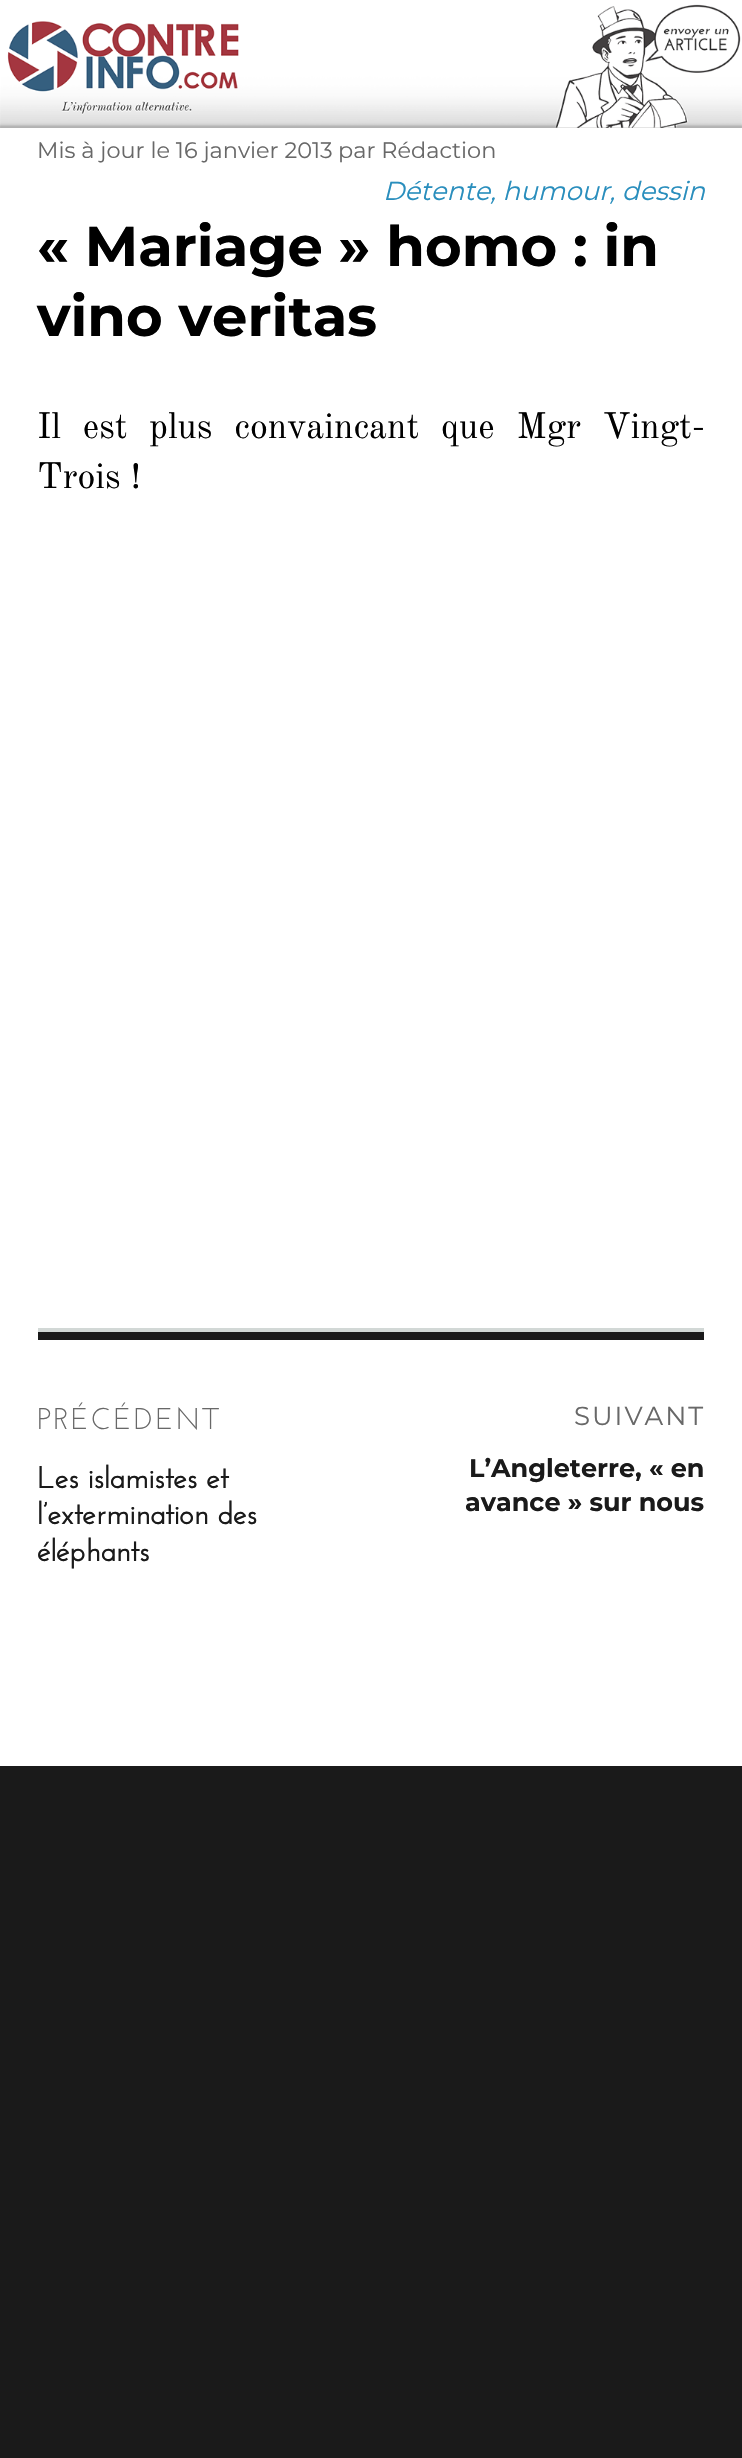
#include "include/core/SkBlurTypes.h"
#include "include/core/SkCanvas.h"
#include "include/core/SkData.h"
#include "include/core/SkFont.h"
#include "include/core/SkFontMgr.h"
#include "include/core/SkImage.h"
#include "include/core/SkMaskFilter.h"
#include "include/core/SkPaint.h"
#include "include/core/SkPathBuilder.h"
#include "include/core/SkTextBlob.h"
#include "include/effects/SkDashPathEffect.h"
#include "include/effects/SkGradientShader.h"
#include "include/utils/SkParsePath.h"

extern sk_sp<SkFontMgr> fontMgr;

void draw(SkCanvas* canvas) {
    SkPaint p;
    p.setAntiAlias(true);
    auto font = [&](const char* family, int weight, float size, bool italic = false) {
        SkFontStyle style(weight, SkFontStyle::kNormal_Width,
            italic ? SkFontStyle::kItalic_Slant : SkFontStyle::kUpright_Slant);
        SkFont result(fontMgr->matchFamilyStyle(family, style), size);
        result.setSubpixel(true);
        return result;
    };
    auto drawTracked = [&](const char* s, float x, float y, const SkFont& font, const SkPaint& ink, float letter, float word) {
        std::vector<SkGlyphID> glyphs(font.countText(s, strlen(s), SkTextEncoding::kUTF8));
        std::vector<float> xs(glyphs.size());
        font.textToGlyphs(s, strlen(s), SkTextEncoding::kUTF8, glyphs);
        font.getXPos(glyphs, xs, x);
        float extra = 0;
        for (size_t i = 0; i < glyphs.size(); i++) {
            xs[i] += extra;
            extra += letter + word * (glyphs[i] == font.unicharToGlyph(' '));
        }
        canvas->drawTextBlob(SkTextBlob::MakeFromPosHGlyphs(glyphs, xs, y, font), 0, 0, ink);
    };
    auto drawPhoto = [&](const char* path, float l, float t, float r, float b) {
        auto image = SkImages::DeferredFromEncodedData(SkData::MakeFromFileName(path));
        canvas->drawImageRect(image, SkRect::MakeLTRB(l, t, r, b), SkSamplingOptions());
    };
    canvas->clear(0xFF1A1A1A);
    p.setColor(0xFFFFFFFF);
    canvas->drawRect(SkRect::MakeLTRB(0, 0, 742, 1766), p);
    drawPhoto("media/1.png", 0, 4, 742, 128);
    p.setColor(0xFFD2D8D6);
    canvas->drawRect(SkRect::MakeLTRB(38, 1328, 704, 1332), p);
    auto font1 = font("Montserrat", 400, 22.4f);
    p.setColor(0xFF686868);
    canvas->drawString("Mis à jour le 16 janvier 2013", 37, 158, font1, p);
    canvas->drawString("par Rédaction", 338, 158, font1, p);
    auto font2 = font("Montserrat", 400, 26, true);
    p.setColor(0xFF298EBD);
    canvas->drawString("Détente, humour, dessin", 383, 200, font2, p);
    auto font3 = font("Montserrat", 700, 56);
    p.setColor(0xFF000000);
    canvas->drawString("« Mariage » homo : in", 37, 266, font3, p);
    canvas->drawString("vino veritas", 37, 336, font3, p);
    auto font4 = font("Old Standard TT", 400, 36);
    drawTracked("Il est plus convaincant que Mgr Vingt-", 37, 438, font4, p, 0, 11.75f);
    canvas->drawString("Trois !", 37, 488, font4, p);
    p.setColor(0xFF1A1A1A);
    canvas->drawRect(SkRect::MakeLTRB(38, 1332, 704, 1340), p);
    auto font5 = font("Josefin Sans", 400, 30);
    p.setColor(0xFF686868);
    drawTracked("PRÉCÉDENT", 37, 1429, font5, p, 2.25f, 0);
    auto font6 = font("Josefin Sans", 700, 30);
    p.setColor(0xFF1A1A1A);
    {
        const struct { const char* s; float x, y; } items[] = {
            {"Les islamistes et", 37, 1488},
            {"l’extermination des", 37, 1524},
            {"éléphants", 37, 1561},
        };
        for (auto [s, x, y] : items) {
            canvas->drawString(s, x, y, font6, p);
        }
    }
    auto font7 = font("Montserrat", 400, 26);
    p.setColor(0xFF686868);
    drawTracked("SUIVANT", 574, 1425, font7, p, 2, 0);
    auto font8 = font("Montserrat", 700, 25.5f);
    p.setColor(0xFF1A1A1A);
    canvas->drawString("L’Angleterre, « en", 469, 1477, font8, p);
    canvas->drawString("avance » sur nous", 465, 1511, font8, p);
}
